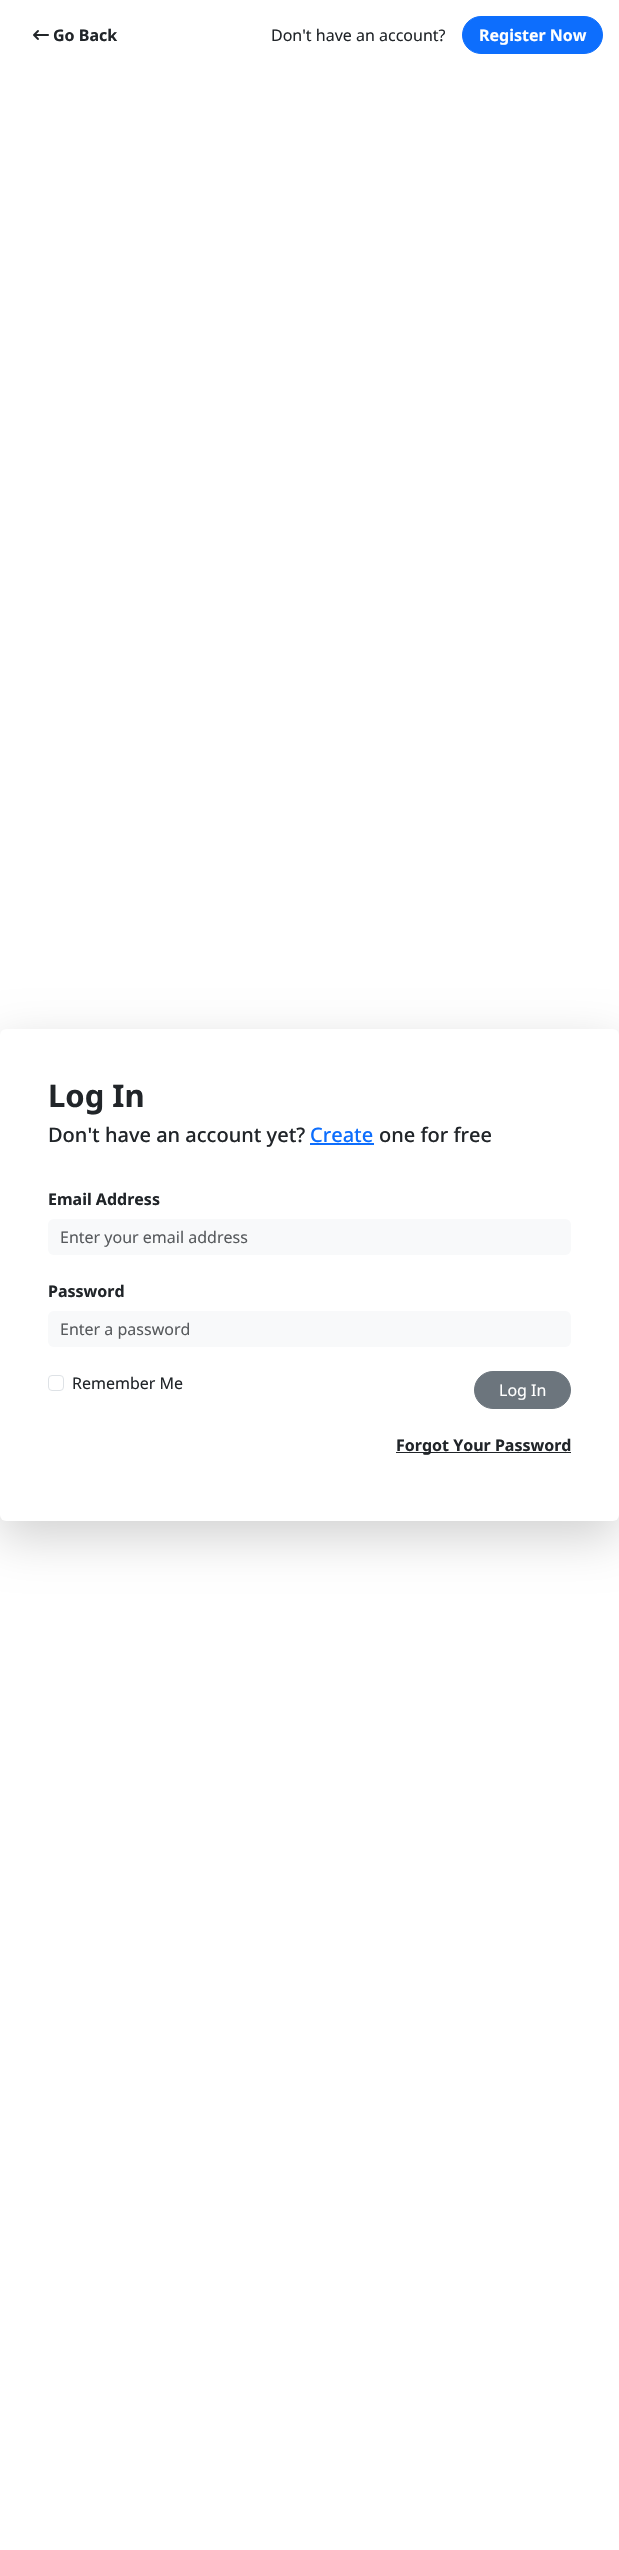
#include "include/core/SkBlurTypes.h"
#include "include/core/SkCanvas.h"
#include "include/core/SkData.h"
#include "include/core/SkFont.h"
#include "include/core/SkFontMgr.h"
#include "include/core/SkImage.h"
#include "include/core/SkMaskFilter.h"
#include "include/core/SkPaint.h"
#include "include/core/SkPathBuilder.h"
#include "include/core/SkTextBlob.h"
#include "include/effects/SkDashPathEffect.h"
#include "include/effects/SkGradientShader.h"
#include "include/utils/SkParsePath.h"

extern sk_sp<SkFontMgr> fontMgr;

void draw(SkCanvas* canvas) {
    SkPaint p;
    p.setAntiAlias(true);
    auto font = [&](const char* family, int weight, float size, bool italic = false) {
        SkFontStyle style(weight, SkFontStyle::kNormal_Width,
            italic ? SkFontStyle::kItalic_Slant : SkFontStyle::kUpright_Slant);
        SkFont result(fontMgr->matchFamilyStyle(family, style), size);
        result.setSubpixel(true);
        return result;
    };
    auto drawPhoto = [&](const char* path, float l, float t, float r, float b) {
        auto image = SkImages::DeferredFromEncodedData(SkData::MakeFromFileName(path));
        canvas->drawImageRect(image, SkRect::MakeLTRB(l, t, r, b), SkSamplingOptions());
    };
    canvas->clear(0xFFFFFFFF);
    drawPhoto("media/1.png", 33, 30, 49, 40);
    auto font1 = font("Noto Sans", 700, 16);
    p.setColor(0xFF212529);
    canvas->drawString("Go Back", 53, 41, font1, p);
    auto font2 = font("Noto Sans", 400, 16);
    canvas->drawString("Don't have an account?", 271, 41, font2, p);
    p.setColor(0xFF0D6EFD);
    canvas->drawRoundRect(SkRect::MakeLTRB(462.5f, 16.5f, 602.5f, 53.5f), 18.5f, 18.5f, p);
    p.setStyle(SkPaint::kStroke_Style);
    p.setStrokeWidth(1);
    canvas->drawRoundRect(SkRect::MakeLTRB(462.5f, 16.5f, 602.5f, 53.5f), 18.5f, 18.5f, p);
    p.setStyle(SkPaint::kFill_Style);
    p.setColor(0xFFFFFFFF);
    canvas->drawString("Register Now", 479, 41, font1, p);
    p.setColor(0x2E000000);
    p.setMaskFilter(SkMaskFilter::MakeBlur(kNormal_SkBlurStyle, 24));
    canvas->drawRoundRect(SkRect::MakeLTRB(0, 1045, 619, 1537), 6, 6, p);
    p.setMaskFilter(nullptr);
    p.setColor(0xFFFFFFFF);
    canvas->drawRoundRect(SkRect::MakeLTRB(0, 1029, 619, 1521), 6, 6, p);
    auto font3 = font("Noto Sans", 700, 31);
    p.setColor(0xFF212529);
    canvas->drawString("Log In", 48, 1107, font3, p);
    auto font4 = font("Noto Sans", 500, 20);
    canvas->drawString("Don't have an account yet?", 48, 1142, font4, p);
    p.setColor(0xFF0D6EFD);
    canvas->drawString("Create", 310, 1142, font4, p);
    canvas->drawRect(SkRect::MakeLTRB(310, 1143, 374, 1145), p);
    p.setColor(0xFF212529);
    canvas->drawString("one for free", 379, 1142, font4, p);
    canvas->drawString("Email Address", 48, 1205, font1, p);
    p.setColor(0xFFF8F9FA);
    canvas->drawRoundRect(SkRect::MakeLTRB(48, 1219, 571, 1255), 6, 6, p);
    p.setColor(0xFF575A5D);
    canvas->drawString("Enter your email address", 60, 1243, font2, p);
    p.setColor(0xFF212529);
    canvas->drawString("Password", 48, 1297, font1, p);
    p.setColor(0xFFF8F9FA);
    canvas->drawRoundRect(SkRect::MakeLTRB(48, 1311, 571, 1347), 6, 6, p);
    p.setColor(0xFF575A5D);
    canvas->drawString("Enter a password", 60, 1335, font2, p);
    p.setStyle(SkPaint::kStroke_Style);
    p.setColor(0xFFDEE2E6);
    canvas->drawRoundRect(SkRect::MakeLTRB(48.5f, 1375.5f, 63.5f, 1390.5f), 3.5f, 3.5f, p);
    p.setStyle(SkPaint::kFill_Style);
    p.setColor(0xFF212529);
    canvas->drawString("Remember Me", 72, 1389, font2, p);
    p.setColor(0xFF6C757D);
    canvas->drawRoundRect(SkRect::MakeLTRB(474.5f, 1371.5f, 570.5f, 1408.5f), 18.5f, 18.5f, p);
    p.setStyle(SkPaint::kStroke_Style);
    canvas->drawRoundRect(SkRect::MakeLTRB(474.5f, 1371.5f, 570.5f, 1408.5f), 18.5f, 18.5f, p);
    p.setStyle(SkPaint::kFill_Style);
    p.setColor(0xFFFFFFFF);
    canvas->drawString("Log In", 499, 1396, font2, p);
    p.setColor(0xFF212529);
    canvas->drawRect(SkRect::MakeLTRB(396, 1452, 571, 1453), p);
    canvas->drawString("Forgot Your Password", 396, 1451, font1, p);
}
